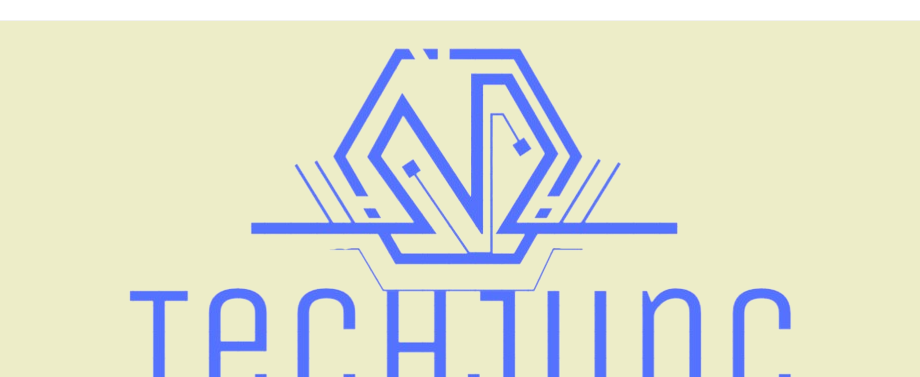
#include "include/core/SkBlurTypes.h"
#include "include/core/SkCanvas.h"
#include "include/core/SkData.h"
#include "include/core/SkFont.h"
#include "include/core/SkFontMgr.h"
#include "include/core/SkImage.h"
#include "include/core/SkMaskFilter.h"
#include "include/core/SkPaint.h"
#include "include/core/SkPathBuilder.h"
#include "include/core/SkTextBlob.h"
#include "include/effects/SkDashPathEffect.h"
#include "include/effects/SkGradientShader.h"
#include "include/utils/SkParsePath.h"

extern sk_sp<SkFontMgr> fontMgr;

void draw(SkCanvas* canvas) {
    SkPaint p;
    p.setAntiAlias(true);
    auto drawPhoto = [&](const char* path, float l, float t, float r, float b) {
        auto image = SkImages::DeferredFromEncodedData(SkData::MakeFromFileName(path));
        canvas->drawImageRect(image, SkRect::MakeLTRB(l, t, r, b), SkSamplingOptions());
    };
    canvas->clear(0xFFEDEDC8);
    p.setColor(0xFFFFFFFF);
    canvas->drawRect(SkRect::MakeLTRB(0, 0, 920, 20), p);
    p.setColor(0xFFF1F1F1);
    canvas->drawRect(SkRect::MakeLTRB(0, 20, 920, 21), p);
    drawPhoto("media/1.png", 129, 47, 792, 377);
}
